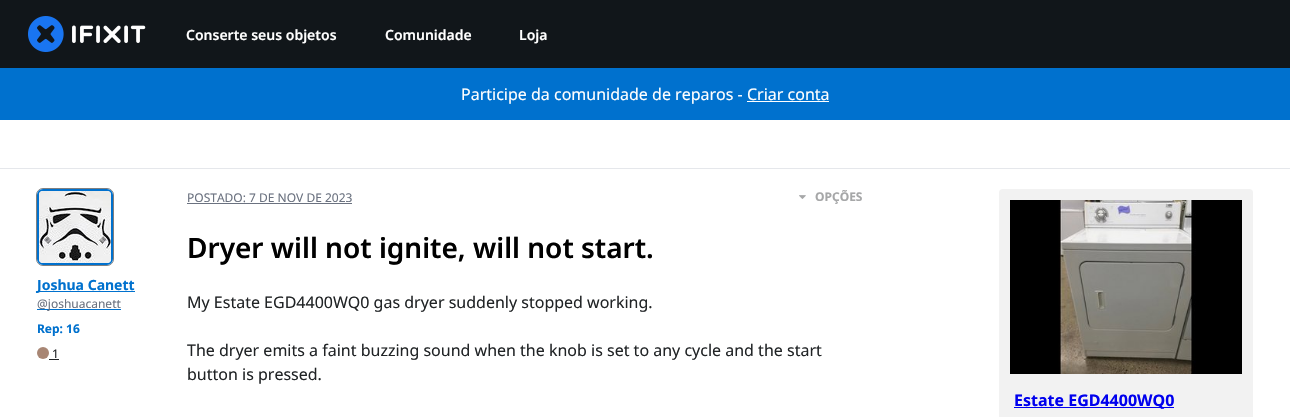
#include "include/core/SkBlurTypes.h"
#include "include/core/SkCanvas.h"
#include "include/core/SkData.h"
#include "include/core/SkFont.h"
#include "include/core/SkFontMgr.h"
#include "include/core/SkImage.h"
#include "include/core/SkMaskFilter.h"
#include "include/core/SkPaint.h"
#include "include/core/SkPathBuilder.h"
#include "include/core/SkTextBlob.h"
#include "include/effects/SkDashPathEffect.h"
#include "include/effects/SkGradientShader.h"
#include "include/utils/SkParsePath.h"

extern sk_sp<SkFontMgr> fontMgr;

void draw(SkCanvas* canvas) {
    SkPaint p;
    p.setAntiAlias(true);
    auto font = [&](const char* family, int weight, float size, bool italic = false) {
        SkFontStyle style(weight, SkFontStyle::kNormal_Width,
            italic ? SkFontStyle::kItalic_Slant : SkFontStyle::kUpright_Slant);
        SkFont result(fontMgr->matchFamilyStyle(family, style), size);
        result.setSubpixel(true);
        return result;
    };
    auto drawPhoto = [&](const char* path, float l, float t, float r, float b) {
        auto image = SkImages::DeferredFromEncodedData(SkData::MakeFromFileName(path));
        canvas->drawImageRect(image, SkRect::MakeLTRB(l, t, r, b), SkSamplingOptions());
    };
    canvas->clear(0xFFFFFFFF);
    p.setColor(0xFF11161A);
    canvas->drawRect(SkRect::MakeLTRB(0, 0, 1290, 68), p);
    drawPhoto("media/1.png", 28, 16, 146, 52);
    auto font1 = font("Noto Sans", 600, 14);
    p.setColor(0xFFFFFFFF);
    {
        const struct { const char* s; float x, y; } items[] = {
            {"Conserte seus objetos", 186, 40},
            {"Comunidade", 385, 40},
            {"Loja", 519, 40},
        };
        for (auto [s, x, y] : items) {
            canvas->drawString(s, x, y, font1, p);
        }
    }
    p.setColor(0xFF0071CE);
    canvas->drawRect(SkRect::MakeLTRB(0, 68, 1290, 120), p);
    auto font2 = font("Noto Sans", 400, 16);
    p.setColor(0xFFFFFFFF);
    canvas->drawString("Participe da comunidade de reparos - Criar conta", 461, 100, font2, p);
    canvas->drawRect(SkRect::MakeLTRB(747, 101, 829, 102), p);
    p.setColor(0xFFE5E7EB);
    canvas->drawRect(SkRect::MakeLTRB(0, 168, 1290, 169), p);
    p.setStyle(SkPaint::kStroke_Style);
    p.setStrokeWidth(1);
    p.setColor(0xFF808080);
    canvas->drawRoundRect(SkRect::MakeLTRB(36.5f, 188.5f, 113.5f, 265.5f), 6.5f, 6.5f, p);
    p.setStrokeWidth(2);
    p.setColor(0xFF0071CE);
    canvas->drawRoundRect(SkRect::MakeLTRB(38, 190, 112, 264), 5, 5, p);
    drawPhoto("media/2.png", 39, 191, 111, 263);
    p.setStyle(SkPaint::kFill_Style);
    canvas->drawRect(SkRect::MakeLTRB(37, 291, 135, 292), p);
    auto font3 = font("Noto Sans", 700, 14);
    canvas->drawString("Joshua Canett", 37, 290, font3, p);
    canvas->drawRect(SkRect::MakeLTRB(37, 309, 121, 310), p);
    auto font4 = font("Noto Sans", 400, 12);
    p.setColor(0xFF6B7280);
    canvas->drawString("@joshuacanett", 37, 308, font4, p);
    auto font5 = font("Noto Sans", 700, 12);
    p.setColor(0xFF0071CE);
    canvas->drawString("Rep: 16", 37, 333, font5, p);
    p.setColor(0xFFA88674);
    canvas->drawCircle(43, 353, 6, p);
    p.setColor(0xFF212426);
    canvas->drawString("1", 52, 358, font4, p);
    canvas->drawRect(SkRect::MakeLTRB(49, 359, 59, 360), p);
    p.setColor(0xFF6B7280);
    canvas->drawString("POSTADO: 7 DE NOV DE 2023", 187, 202, font4, p);
    canvas->drawRect(SkRect::MakeLTRB(187, 203, 352, 204), p);
    drawPhoto("media/3.png", 799, 195, 806, 199);
    p.setColor(0xFFA6A7A8);
    canvas->drawString("OPÇÕES", 815, 201, font5, p);
    auto font6 = font("Noto Sans", 600, 28);
    p.setColor(0xFF000000);
    canvas->drawString("Dryer will not ignite, will not start.", 187, 258, font6, p);
    p.setColor(0xFF212426);
    {
        const struct { const char* s; float x, y; } items[] = {
            {"My Estate EGD4400WQ0 gas dryer suddenly stopped working.", 187, 308},
            {"The dryer emits a faint buzzing sound when the knob is set to any cycle and the start", 187, 356},
            {"button is pressed.", 187, 380},
        };
        for (auto [s, x, y] : items) {
            canvas->drawString(s, x, y, font2, p);
        }
    }
    p.setColor(0xFFF2F2F2);
    canvas->drawRoundRect(SkRect::MakeLTRB(999, 189, 1253, 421), 4, 4, p);
    drawPhoto("media/4.png", 1010, 200, 1242, 374);
    p.setColor(0xFF0000EE);
    canvas->drawRect(SkRect::MakeLTRB(1014, 407, 1174, 408), p);
    auto font7 = font("Noto Sans", 700, 16);
    canvas->drawString("Estate EGD4400WQ0", 1014, 406, font7, p);
}
